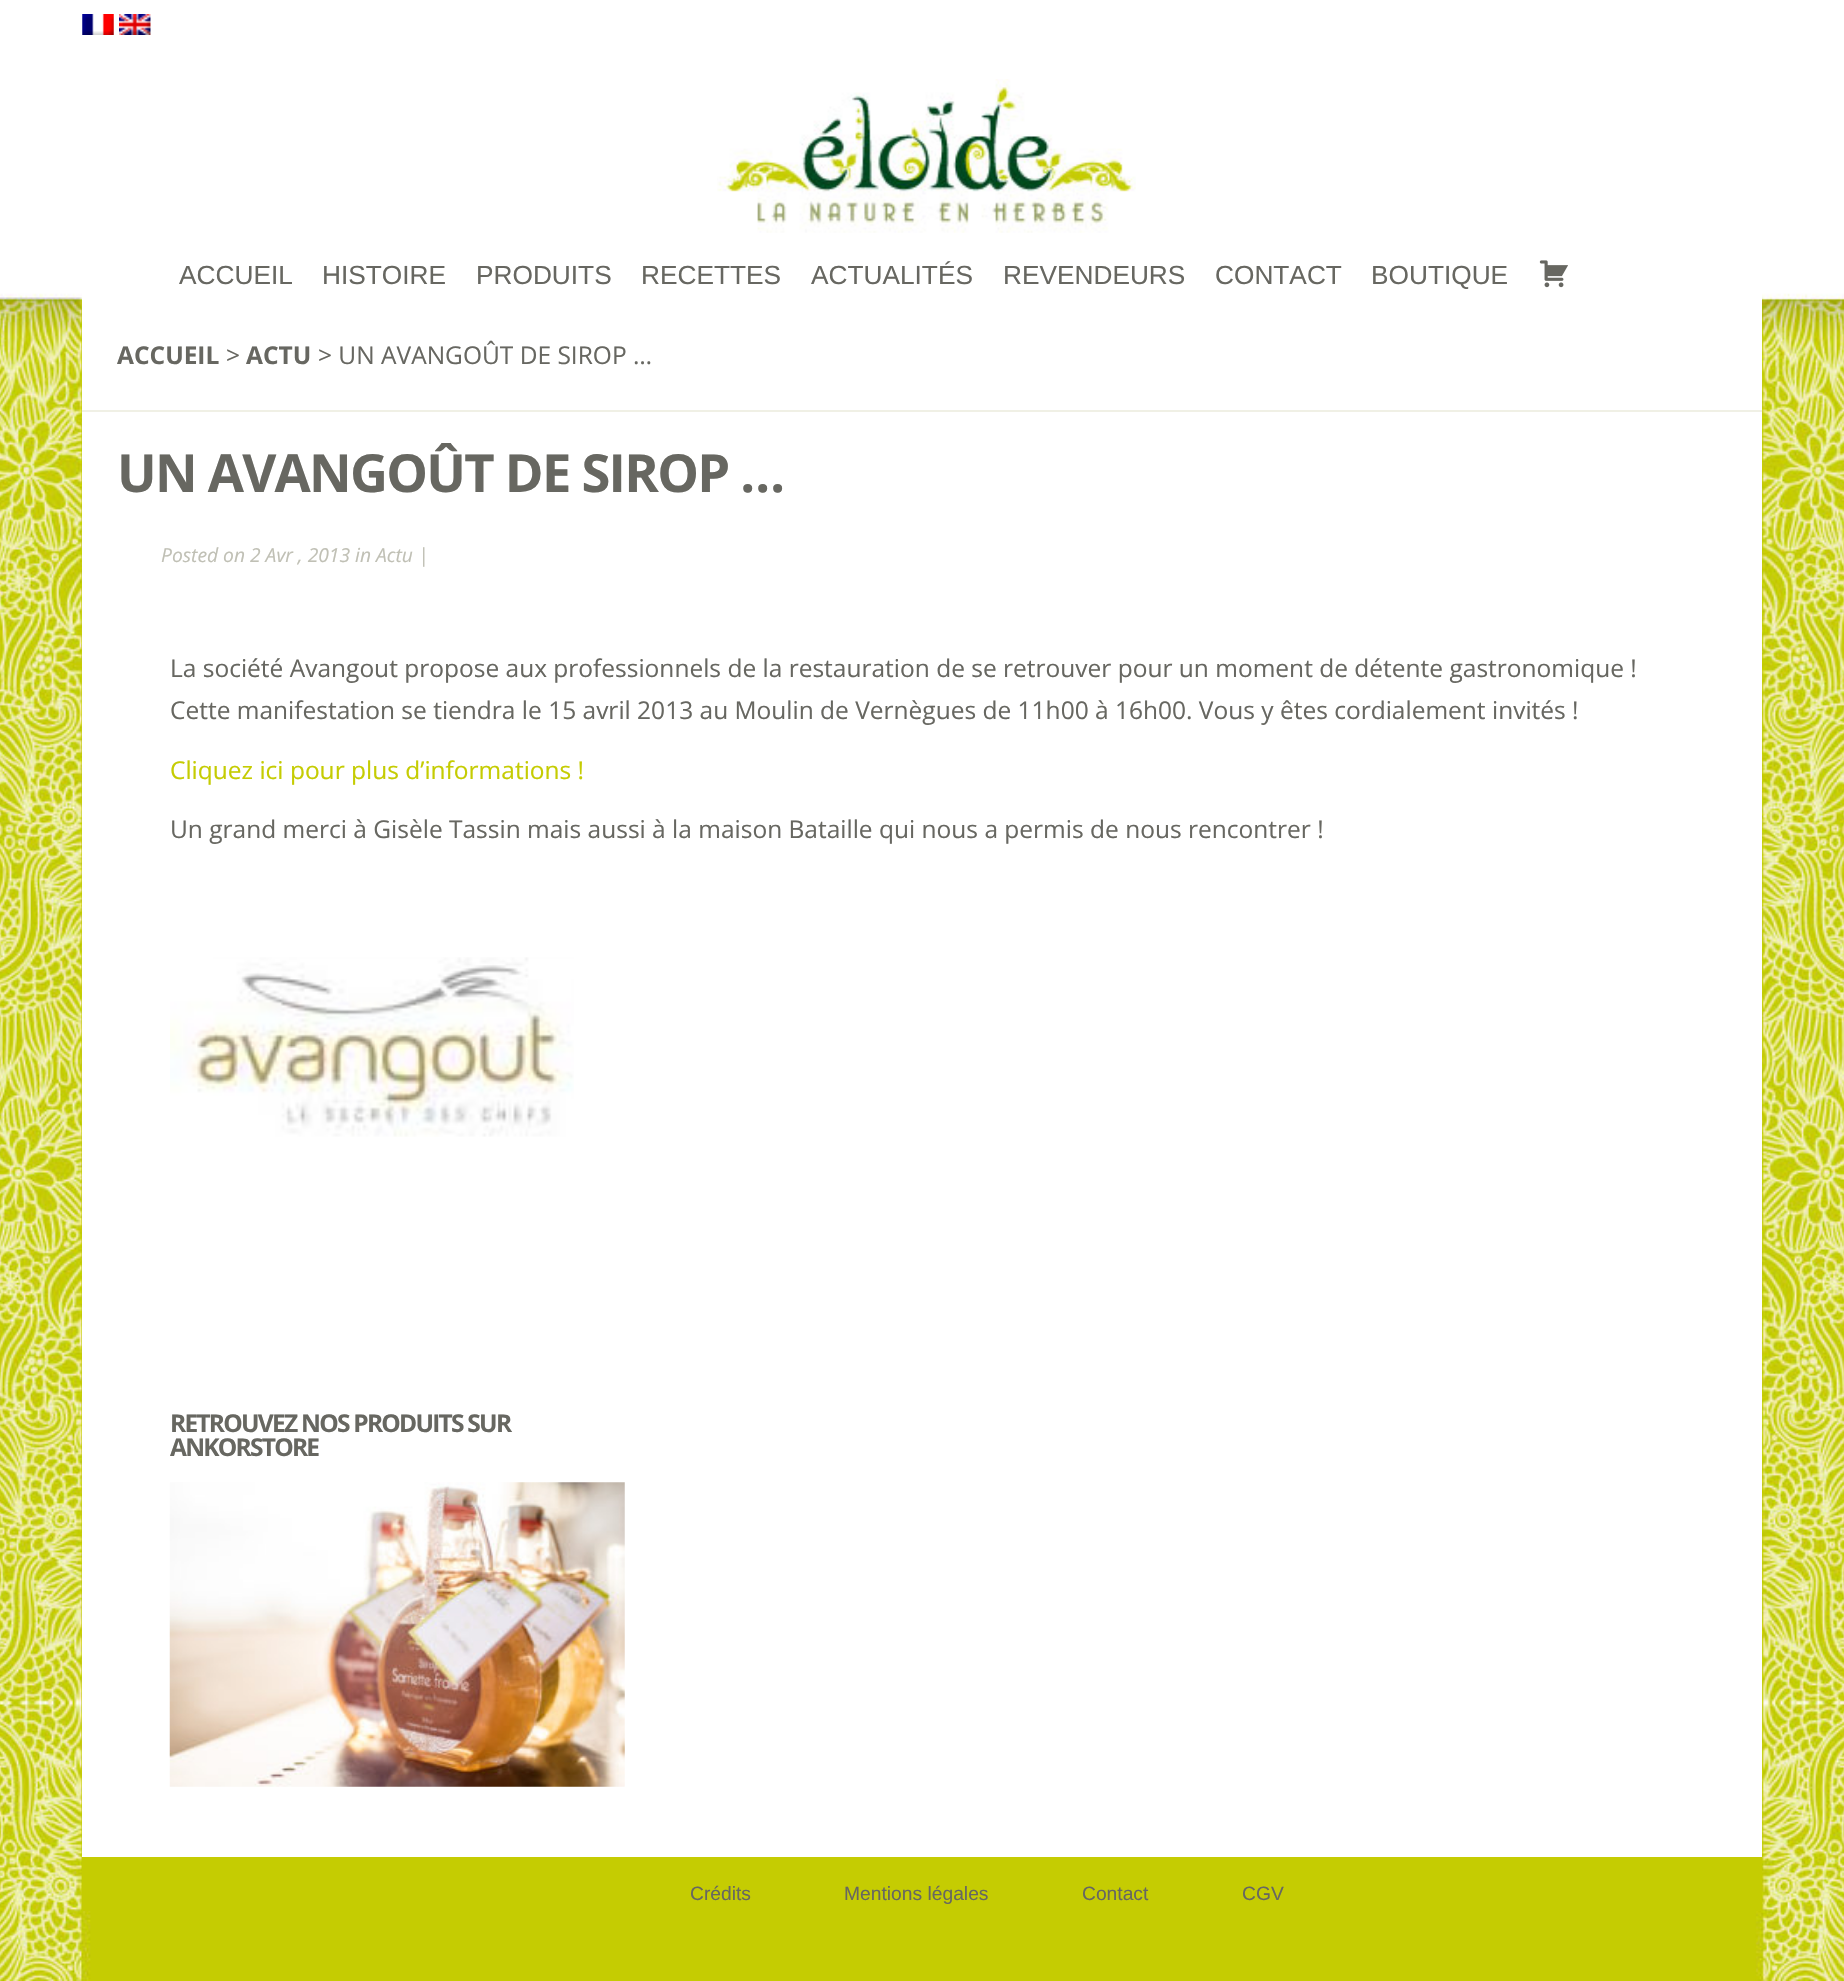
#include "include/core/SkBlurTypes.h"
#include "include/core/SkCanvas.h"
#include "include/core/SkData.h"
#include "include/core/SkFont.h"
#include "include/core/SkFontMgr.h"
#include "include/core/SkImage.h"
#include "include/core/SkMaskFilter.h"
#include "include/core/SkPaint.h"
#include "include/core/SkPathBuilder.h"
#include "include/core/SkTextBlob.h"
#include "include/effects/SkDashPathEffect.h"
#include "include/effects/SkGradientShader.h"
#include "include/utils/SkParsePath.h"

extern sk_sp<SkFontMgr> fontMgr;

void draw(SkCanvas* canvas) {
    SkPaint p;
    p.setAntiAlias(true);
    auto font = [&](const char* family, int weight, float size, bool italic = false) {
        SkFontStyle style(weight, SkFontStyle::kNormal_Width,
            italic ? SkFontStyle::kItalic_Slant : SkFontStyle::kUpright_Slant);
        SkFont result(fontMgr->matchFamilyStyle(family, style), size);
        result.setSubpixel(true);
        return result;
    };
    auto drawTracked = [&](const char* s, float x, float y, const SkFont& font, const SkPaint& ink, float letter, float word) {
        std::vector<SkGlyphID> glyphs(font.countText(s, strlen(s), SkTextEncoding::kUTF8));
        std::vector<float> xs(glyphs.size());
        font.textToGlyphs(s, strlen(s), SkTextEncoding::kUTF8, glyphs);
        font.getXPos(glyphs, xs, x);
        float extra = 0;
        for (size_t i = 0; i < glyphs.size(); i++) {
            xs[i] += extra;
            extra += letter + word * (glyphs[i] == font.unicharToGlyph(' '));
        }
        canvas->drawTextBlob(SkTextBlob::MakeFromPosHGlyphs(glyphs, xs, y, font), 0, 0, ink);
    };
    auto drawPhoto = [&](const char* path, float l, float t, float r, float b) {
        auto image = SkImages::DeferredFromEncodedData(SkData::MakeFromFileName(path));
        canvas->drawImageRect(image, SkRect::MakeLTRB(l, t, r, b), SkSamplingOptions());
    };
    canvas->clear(0xFFFFFFFF);
    drawPhoto("media/1.png", 0, 293, 1844, 1981);
    p.setColor(0xFFFFFFFF);
    canvas->drawRect(SkRect::MakeLTRB(82, 293, 1762, 1857), p);
    drawPhoto("media/2.png", 82, 14, 114, 35);
    drawPhoto("media/3.png", 119, 14, 151, 35);
    drawPhoto("media/4.png", 717, 79, 1136, 233);
    auto font1 = font("Liberation Sans", 400, 26.25f);
    p.setColor(0xFF676761);
    {
        const struct { const char* s; float x, y; } items[] = {
            {"ACCUEIL", 179, 284},
            {"HISTOIRE", 322, 284},
            {"PRODUITS", 476, 284},
            {"RECETTES", 641, 284},
            {"ACTUALITÉS", 811, 284},
            {"REVENDEURS", 1003, 284},
            {"CONTACT", 1215, 284},
            {"BOUTIQUE", 1371, 284},
        };
        for (auto [s, x, y] : items) {
            canvas->drawString(s, x, y, font1, p);
        }
    }
    drawPhoto("media/5.png", 1539, 260, 1568, 288);
    p.setColor(0xFFF0F0E5);
    canvas->drawRect(SkRect::MakeLTRB(82, 410, 1762, 412), p);
    auto font2 = font("Open Sans", 700, 24.5f);
    p.setColor(0xFF676761);
    canvas->drawString("ACCUEIL", 117, 364, font2, p);
    auto font3 = font("Open Sans", 400, 24.5f);
    canvas->drawString(">", 226, 364, font3, p);
    canvas->drawString("ACTU", 246, 364, font2, p);
    canvas->drawString("> UN AVANGOÛT DE SIROP …", 318, 364, font3, p);
    auto font4 = font("Open Sans", 700, 52.5f);
    drawTracked("UN AVANGOÛT DE SIROP …", 117, 492, font4, p, -1.75f, 0);
    auto font5 = font("Open Sans", 400, 19.25f, true);
    p.setColor(0xFFC0C0B5);
    canvas->drawString("Posted on 2 Avr , 2013 in Actu |", 161, 562, font5, p);
    p.setColor(0xFF676761);
    canvas->drawString("La société Avangout propose aux professionnels de la restauration de se retrouver pour un moment de détente gastronomique !", 170, 677, font3, p);
    canvas->drawString("Cette manifestation se tiendra le 15 avril 2013 au Moulin de Vernègues de 11h00 à 16h00. Vous y êtes cordialement invités !", 170, 719, font3, p);
    p.setColor(0xFFC5CC02);
    canvas->drawString("Cliquez ici pour plus d’informations !", 170, 779, font3, p);
    p.setColor(0xFF676761);
    canvas->drawString("Un grand merci à Gisèle Tassin mais aussi à la maison Bataille qui nous a permis de nous rencontrer !", 170, 838, font3, p);
    drawPhoto("media/6.png", 170, 957, 574, 1137);
    drawTracked("RETROUVEZ NOS PRODUITS SUR", 170, 1432, font2, p, -1.75f, 0);
    drawTracked("ANKORSTORE", 170, 1456, font2, p, -1.75f, 0);
    drawPhoto("media/7.png", 169, 1482, 625, 1787);
    p.setColor(0xFFC5CC02);
    canvas->drawRect(SkRect::MakeLTRB(82, 1857, 1762, 1911), p);
    auto font6 = font("Liberation Sans", 400, 19.25f);
    p.setColor(0xFF676761);
    {
        const struct { const char* s; float x, y; } items[] = {
            {"Crédits", 690, 1900},
            {"Mentions légales", 844, 1900},
            {"Contact", 1082, 1900},
            {"CGV", 1242, 1900},
        };
        for (auto [s, x, y] : items) {
            canvas->drawString(s, x, y, font6, p);
        }
    }
}
